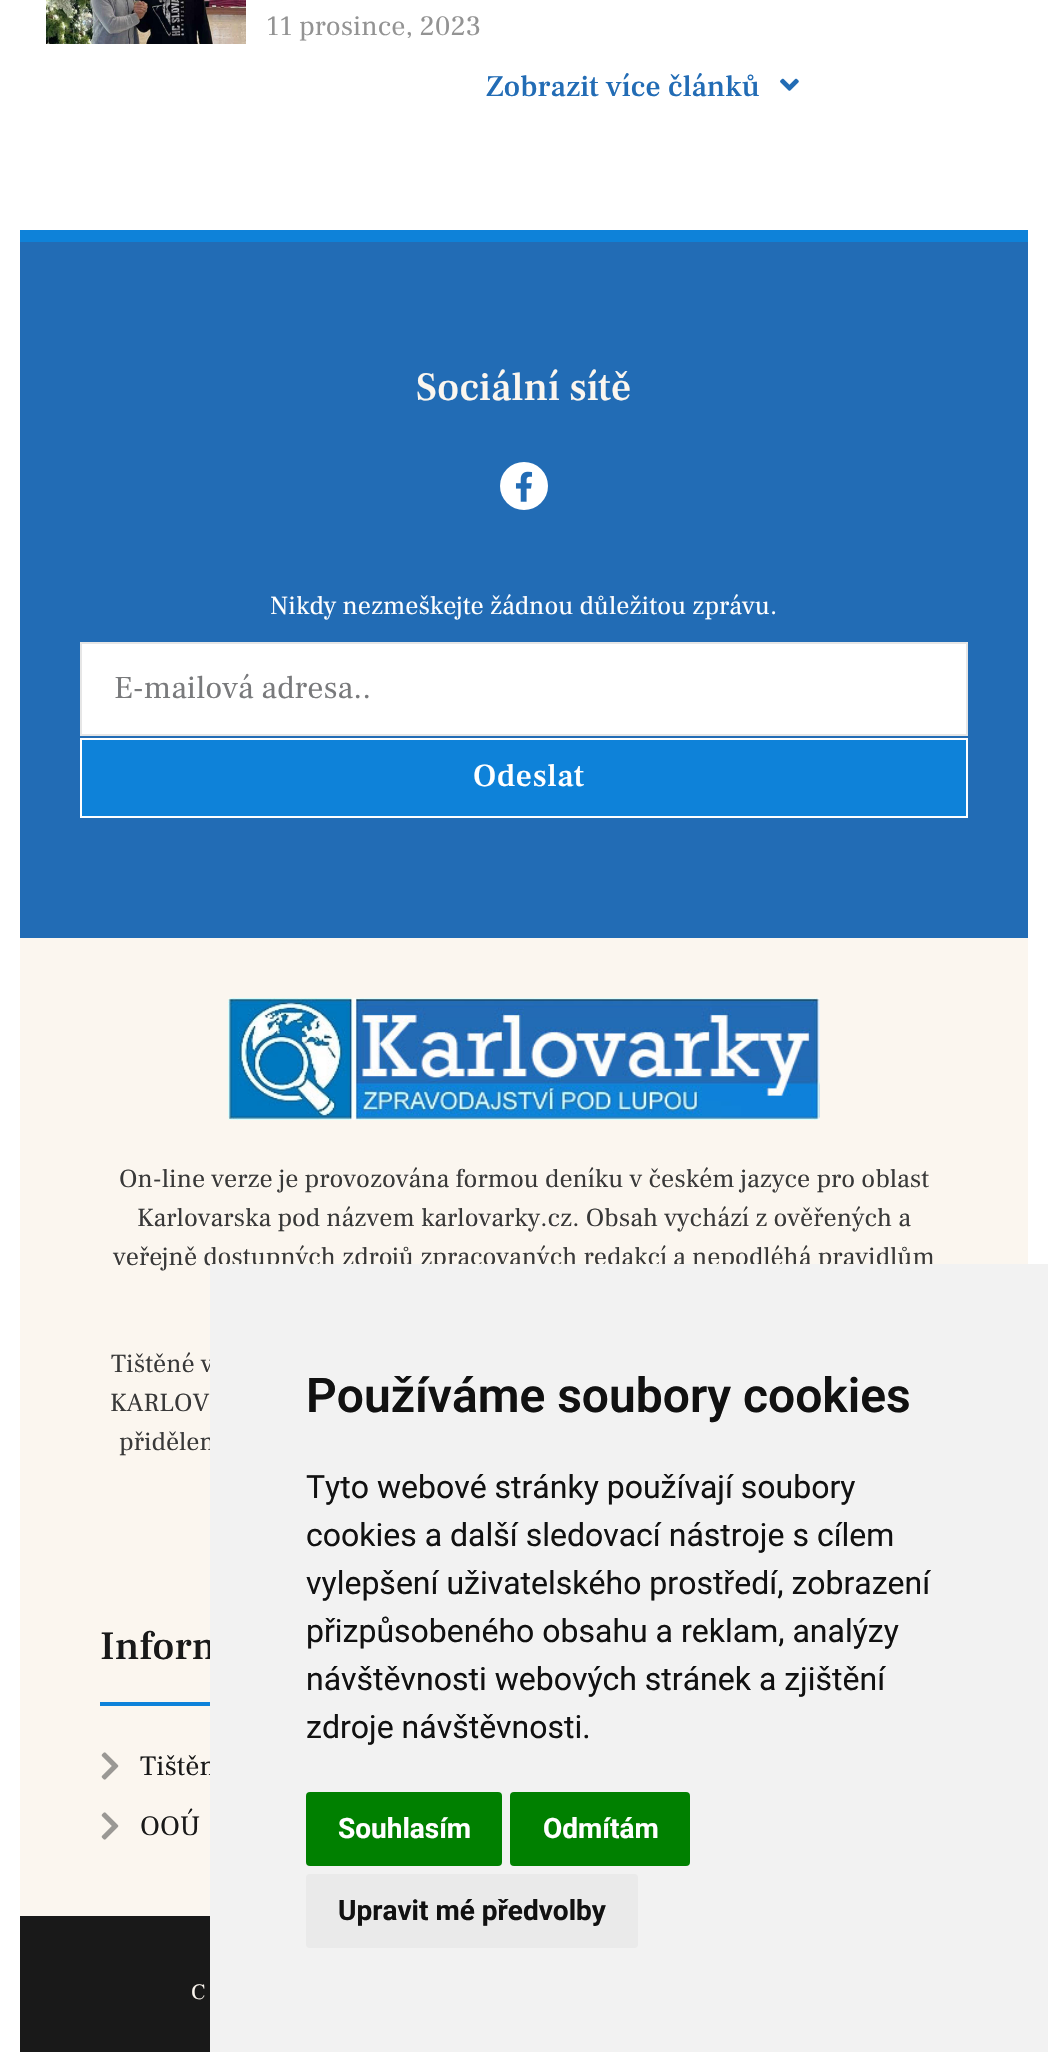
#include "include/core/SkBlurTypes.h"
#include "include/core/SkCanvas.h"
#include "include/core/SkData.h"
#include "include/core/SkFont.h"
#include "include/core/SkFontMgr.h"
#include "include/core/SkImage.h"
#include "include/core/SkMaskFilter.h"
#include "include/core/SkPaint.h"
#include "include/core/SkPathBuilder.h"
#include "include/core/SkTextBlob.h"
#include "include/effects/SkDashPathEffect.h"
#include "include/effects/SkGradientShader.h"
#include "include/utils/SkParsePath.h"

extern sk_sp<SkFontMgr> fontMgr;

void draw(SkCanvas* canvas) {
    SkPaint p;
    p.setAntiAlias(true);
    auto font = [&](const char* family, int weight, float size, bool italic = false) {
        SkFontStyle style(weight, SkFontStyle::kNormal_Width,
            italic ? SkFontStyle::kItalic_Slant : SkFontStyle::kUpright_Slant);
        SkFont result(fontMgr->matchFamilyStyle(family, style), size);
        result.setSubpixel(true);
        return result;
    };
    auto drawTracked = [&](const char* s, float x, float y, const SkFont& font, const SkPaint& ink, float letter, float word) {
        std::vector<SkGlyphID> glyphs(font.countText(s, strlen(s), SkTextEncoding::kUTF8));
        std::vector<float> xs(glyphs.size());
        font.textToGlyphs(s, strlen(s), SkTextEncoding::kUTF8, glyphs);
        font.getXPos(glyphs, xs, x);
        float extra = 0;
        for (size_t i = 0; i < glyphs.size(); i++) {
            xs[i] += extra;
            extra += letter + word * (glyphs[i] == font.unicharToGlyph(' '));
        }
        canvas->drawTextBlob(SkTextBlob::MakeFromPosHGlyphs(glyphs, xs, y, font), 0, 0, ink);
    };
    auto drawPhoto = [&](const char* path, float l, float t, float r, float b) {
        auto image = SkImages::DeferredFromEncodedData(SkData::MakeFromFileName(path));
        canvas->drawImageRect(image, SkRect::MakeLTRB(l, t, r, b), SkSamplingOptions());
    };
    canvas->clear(0xFFFFFFFF);
    drawPhoto("media/1.png", 46, 0, 246, 44);
    auto font1 = font("Frank Ruhl Libre", 400, 28);
    p.setColor(0xFF939393);
    canvas->drawString("11 prosince, 2023", 266, 35, font1, p);
    auto font2 = font("Frank Ruhl Libre", 500, 30);
    p.setColor(0xFF226CB5);
    canvas->drawString("Zobrazit více článků", 486, 96, font2, p);
    drawPhoto("media/2.png", 780, 78, 799, 91);
    canvas->drawRect(SkRect::MakeLTRB(20, 242, 1028, 938), p);
    p.setColor(0xFF0E82D9);
    canvas->drawRect(SkRect::MakeLTRB(20, 230, 1028, 242), p);
    auto font3 = font("Frank Ruhl Libre", 500, 40);
    p.setColor(0xFFFBF6EF);
    canvas->drawString("Sociální sítě", 416, 400, font3, p);
    p.setColor(0xFFFFFFFF);
    canvas->drawCircle(524, 486, 24, p);
    drawPhoto("media/3.png", 515, 471, 533, 502);
    auto font4 = font("Frank Ruhl Libre", 400, 26);
    canvas->drawString("Nikdy nezmeškejte žádnou důležitou zprávu.", 270, 614, font4, p);
    canvas->drawRect(SkRect::MakeLTRB(81, 643, 967, 735), p);
    p.setStyle(SkPaint::kStroke_Style);
    p.setStrokeWidth(2);
    p.setColor(0xFFE6E6E6);
    canvas->drawRect(SkRect::MakeLTRB(81, 643, 967, 735), p);
    auto font5 = font("Frank Ruhl Libre", 400, 32);
    p.setStyle(SkPaint::kFill_Style);
    p.setColor(0xFF797A7C);
    canvas->drawString("E-mailová adresa..", 114, 698, font5, p);
    p.setColor(0xFF0E82D9);
    canvas->drawRect(SkRect::MakeLTRB(81, 739, 967, 817), p);
    p.setStyle(SkPaint::kStroke_Style);
    p.setColor(0xFFFFFFFF);
    canvas->drawRect(SkRect::MakeLTRB(81, 739, 967, 817), p);
    auto font6 = font("Frank Ruhl Libre", 500, 32);
    p.setStyle(SkPaint::kFill_Style);
    drawTracked("Odeslat", 473, 786, font6, p, 0.5f, 0);
    p.setColor(0xFFFBF6EF);
    canvas->drawRect(SkRect::MakeLTRB(20, 938, 1028, 1916), p);
    drawPhoto("media/4.png", 228, 998, 820, 1120);
    p.setColor(0xFF393939);
    {
        const struct { const char* s; float x, y; } items[] = {
            {"On-line verze je provozována formou deníku v českém jazyce pro oblast", 119, 1187},
            {"Karlovarska pod názvem karlovarky.cz. Obsah vychází z ověřených a", 137, 1226},
            {"veřejně dostupných zdrojů zpracovaných redakcí a nepodléhá pravidlům", 113, 1265},
            {"Tištěné v", 111, 1372},
            {"KARLOV", 110, 1411},
            {"přidělen", 119, 1450},
        };
        for (auto [s, x, y] : items) {
            canvas->drawString(s, x, y, font4, p);
        }
    }
    p.setColor(0xFF191919);
    canvas->drawString("Inform", 100, 1659, font3, p);
    p.setColor(0xFF0E82D9);
    canvas->drawRect(SkRect::MakeLTRB(100, 1702, 210, 1706), p);
    drawPhoto("media/5.png", 101, 1752, 119, 1780);
    p.setColor(0xFF191919);
    canvas->drawString("Tištěn", 140, 1775, font1, p);
    drawPhoto("media/5.png", 101, 1812, 119, 1840);
    canvas->drawString("OOÚ", 140, 1835, font1, p);
    canvas->drawRect(SkRect::MakeLTRB(20, 1916, 210, 2052), p);
    auto font7 = font("Frank Ruhl Libre", 400, 22);
    p.setColor(0xFFFBF6EF);
    canvas->drawString("C", 191, 1999, font7, p);
    p.setColor(0xFFF2F2F2);
    canvas->drawRect(SkRect::MakeLTRB(210, 1264, 1048, 2052), p);
    auto font8 = font("Roboto", 600, 48);
    p.setColor(0xFF111111);
    canvas->drawString("Používáme soubory cookies", 306, 1412, font8, p);
    auto font9 = font("Roboto", 400, 32);
    {
        const struct { const char* s; float x, y; } items[] = {
            {"Tyto webové stránky používají soubory", 306, 1498},
            {"cookies a další sledovací nástroje s cílem", 306, 1546},
            {"vylepšení uživatelského prostředí, zobrazení", 306, 1594},
            {"přizpůsobeného obsahu a reklam, analýzy", 306, 1642},
            {"návštěvnosti webových stránek a zjištění", 306, 1690},
            {"zdroje návštěvnosti.", 306, 1738},
        };
        for (auto [s, x, y] : items) {
            canvas->drawString(s, x, y, font9, p);
        }
    }
    p.setColor(0xFF008000);
    canvas->drawRoundRect(SkRect::MakeLTRB(306, 1792, 502, 1866), 4, 4, p);
    auto font10 = font("Roboto", 700, 28);
    p.setColor(0xFFFFFFFF);
    canvas->drawString("Souhlasím", 338, 1838, font10, p);
    p.setColor(0xFF008000);
    canvas->drawRoundRect(SkRect::MakeLTRB(510, 1792, 690, 1866), 4, 4, p);
    p.setColor(0xFFFFFFFF);
    canvas->drawString("Odmítám", 543, 1838, font10, p);
    p.setColor(0xFFEAEAEA);
    canvas->drawRoundRect(SkRect::MakeLTRB(306, 1874, 638, 1948), 4, 4, p);
    p.setColor(0xFF111111);
    canvas->drawString("Upravit mé předvolby", 338, 1920, font10, p);
}
